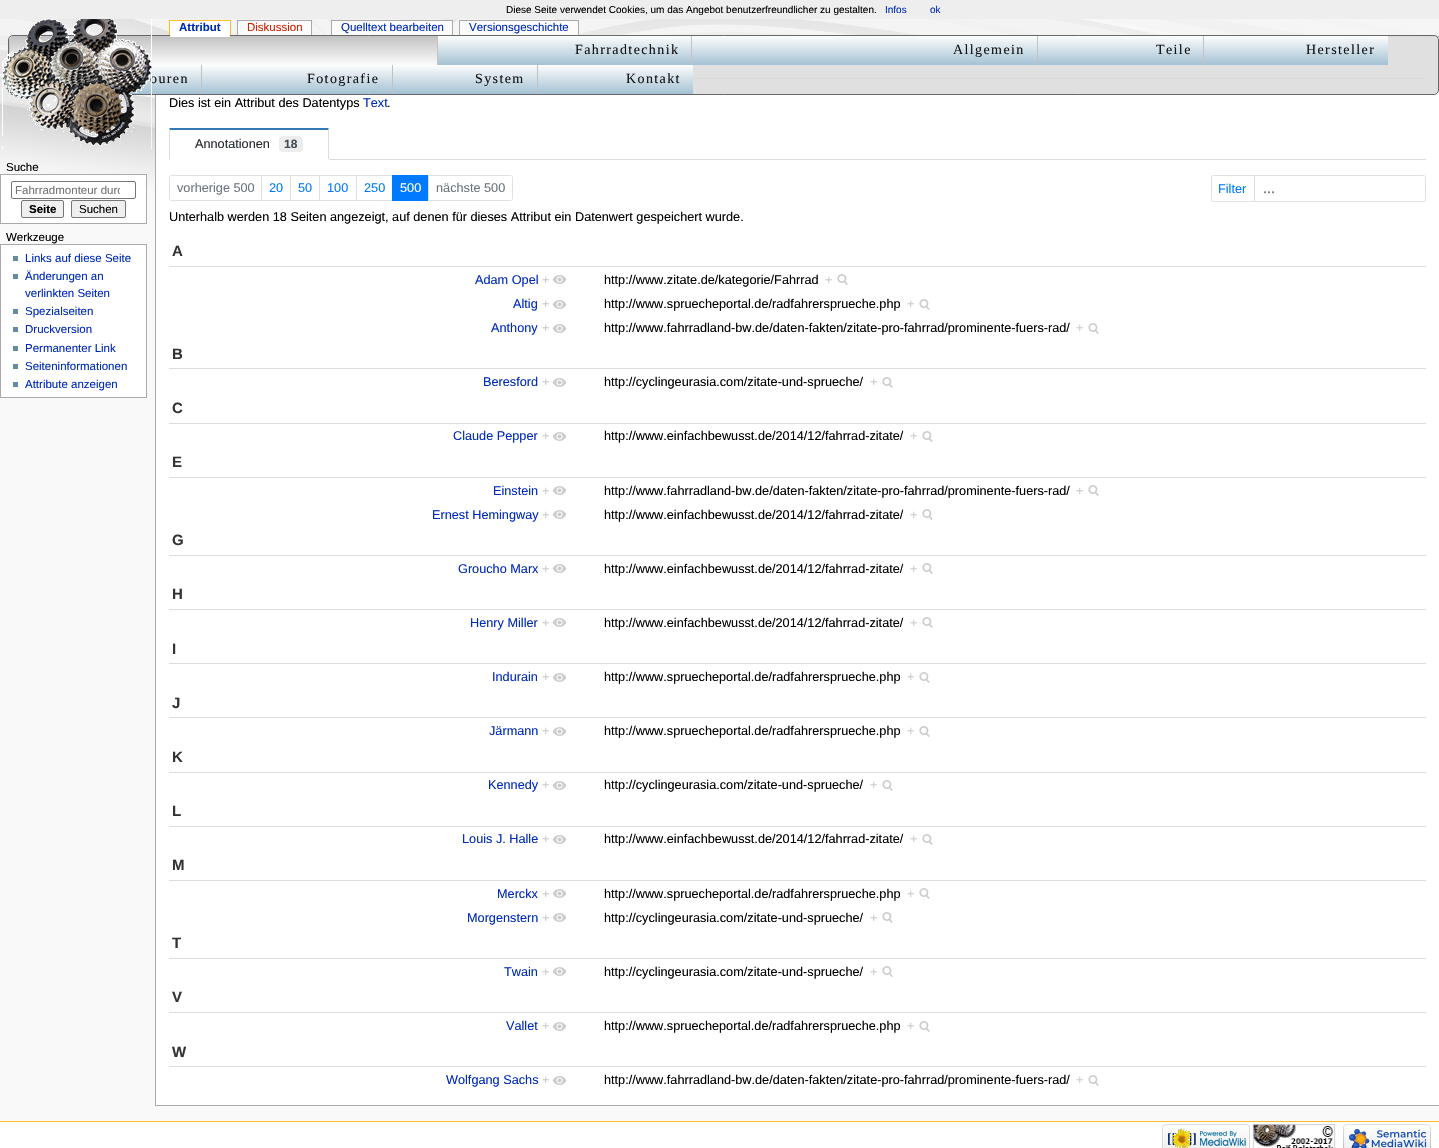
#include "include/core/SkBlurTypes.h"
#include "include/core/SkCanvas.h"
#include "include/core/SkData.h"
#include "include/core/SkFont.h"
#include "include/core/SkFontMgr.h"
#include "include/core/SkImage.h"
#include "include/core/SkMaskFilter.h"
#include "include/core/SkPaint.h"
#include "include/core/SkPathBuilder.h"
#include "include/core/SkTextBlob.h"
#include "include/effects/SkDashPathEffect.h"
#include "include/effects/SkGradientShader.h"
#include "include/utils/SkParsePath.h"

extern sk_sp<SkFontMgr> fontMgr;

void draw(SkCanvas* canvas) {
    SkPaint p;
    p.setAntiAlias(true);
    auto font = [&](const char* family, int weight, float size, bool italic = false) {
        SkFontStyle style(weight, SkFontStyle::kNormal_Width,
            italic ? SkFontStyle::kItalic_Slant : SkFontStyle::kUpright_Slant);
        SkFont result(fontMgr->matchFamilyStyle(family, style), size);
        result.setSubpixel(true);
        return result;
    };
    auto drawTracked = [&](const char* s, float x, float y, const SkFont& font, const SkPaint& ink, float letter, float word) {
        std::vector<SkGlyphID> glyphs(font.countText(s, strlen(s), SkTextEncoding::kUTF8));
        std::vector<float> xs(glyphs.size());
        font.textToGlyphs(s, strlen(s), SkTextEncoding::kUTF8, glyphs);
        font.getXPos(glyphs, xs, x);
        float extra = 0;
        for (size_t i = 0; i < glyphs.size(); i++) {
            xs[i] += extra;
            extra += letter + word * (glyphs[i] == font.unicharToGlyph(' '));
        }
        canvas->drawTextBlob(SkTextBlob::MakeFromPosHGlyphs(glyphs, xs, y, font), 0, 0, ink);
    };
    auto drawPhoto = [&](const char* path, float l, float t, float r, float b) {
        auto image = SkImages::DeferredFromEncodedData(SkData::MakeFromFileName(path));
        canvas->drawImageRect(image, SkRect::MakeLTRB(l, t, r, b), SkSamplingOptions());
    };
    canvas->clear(0xFFF9F9F9);
    drawPhoto("media/1.png", 0, 19, 1439, 210);
    p.setColor(0xFFEEEEEE);
    canvas->drawRect(SkRect::MakeLTRB(0, 0, 1439, 19), p);
    auto font1 = font("Liberation Sans", 400, 10);
    p.setColor(0xFF000000);
    canvas->drawString("Diese Seite verwendet Cookies, um das Angebot benutzerfreundlicher zu gestalten.", 506, 13, font1, p);
    p.setColor(0xFF002BB8);
    canvas->drawString("Infos", 885, 13, font1, p);
    canvas->drawString("ok", 930, 13, font1, p);
    {
        const struct { float l, t, r, b; SkColor color; } items[] = {
            {169, 20, 231, 21, 0xFFFABD23},
            {230, 20, 231, 36, 0xFFFABD23},
            {169, 20, 170, 36, 0xFFFABD23},
            {237, 20, 312, 21, 0xFFAAAAAA},
            {311, 20, 312, 36, 0xFFAAAAAA},
            {237, 20, 238, 36, 0xFFAAAAAA},
            {238, 21, 311, 36, 0xFFFBFBFB},
            {331, 20, 453, 21, 0xFFAAAAAA},
            {452, 20, 453, 36, 0xFFAAAAAA},
            {331, 20, 332, 36, 0xFFAAAAAA},
            {332, 21, 452, 36, 0xFFFBFBFB},
            {459, 20, 579, 21, 0xFFAAAAAA},
            {578, 20, 579, 36, 0xFFAAAAAA},
            {459, 20, 460, 36, 0xFFAAAAAA},
            {460, 21, 578, 36, 0xFFFBFBFB},
            {156, 37, 1439, 1105, 0xFFFFFFFF},
            {155, 36, 1439, 37, 0xFFAAAAAA},
            {155, 1105, 1439, 1106, 0xFFAAAAAA},
            {155, 36, 156, 1106, 0xFFAAAAAA},
            {169, 78, 1426, 79, 0xFFA2A9B1},
        };
        for (auto [l, t, r, b, color] : items) {
            p.setColor(color);
            canvas->drawRect(SkRect::MakeLTRB(l, t, r, b), p);
        }
    }
    p.setColor(0xEDDEDEDE);
    canvas->drawRoundRect(SkRect::MakeLTRB(8, 35, 1439, 95), 5, 5, p);
    p.setStyle(SkPaint::kStroke_Style);
    p.setStrokeWidth(1);
    p.setColor(0xED5F5F5F);
    canvas->drawRoundRect(SkRect::MakeLTRB(8.5f, 35.5f, 1438.5f, 94.5f), 4.5f, 4.5f, p);
    p.setStyle(SkPaint::kFill_Style);
    p.setColor(0xEDC1C1C1);
    canvas->drawPath(SkPathBuilder().moveTo(14, 36).lineTo(437, 36).lineTo(437, 65).lineTo(14, 65).cubicTo(12, 65, 10, 63, 10, 60).lineTo(10, 41).cubicTo(10, 38, 12, 36, 14, 36).close().detach(), p);
    {
        const SkColor colors[] = {0xEDC1C1C1, 0xEDFFFFFF};
        const float stops[] = {0, 1};
        const SkPoint ends[] = {{224, 36}, {224, 65}};
        p.setShader(SkGradientShader::MakeLinear(ends, colors, stops, 2, SkTileMode::kClamp));
        p.setAlpha(255);
    }
    canvas->drawPath(SkPathBuilder().moveTo(14, 36).lineTo(437, 36).lineTo(437, 65).lineTo(14, 65).cubicTo(12, 65, 10, 63, 10, 60).lineTo(10, 41).cubicTo(10, 38, 12, 36, 14, 36).close().detach(), p);
    p.setShader(nullptr);
    p.setColor(0xEDC0C0C0);
    canvas->drawRect(SkRect::MakeLTRB(9, 39, 10, 53), p);
    {
        const SkColor colors[] = {0xEDFFFFFF, 0xED9FBFD2};
        const float stops[] = {0, 1};
        const SkPoint ends[] = {{106, 65}, {106, 94}};
        p.setShader(SkGradientShader::MakeLinear(ends, colors, stops, 2, SkTileMode::kClamp));
        p.setAlpha(255);
    }
    canvas->drawRect(SkRect::MakeLTRB(130, 65, 201, 94), p);
    auto font2 = font("Liberation Serif", 400, 14);
    p.setShader(nullptr);
    p.setColor(0xFF121212);
    drawTracked("ouren", 150, 83, font2, p, 1.4f, 0);
    drawPhoto("media/2.png", 2, 19, 152, 149);
    p.setColor(0xFFFFFFFF);
    canvas->drawRect(SkRect::MakeLTRB(170, 21, 230, 37), p);
    auto font3 = font("Liberation Sans", 700, 11.5f);
    p.setColor(0xFF002BB8);
    canvas->drawString("Attribut", 179, 31, font3, p);
    auto font4 = font("Liberation Sans", 400, 11.5f);
    p.setColor(0xFFCC2200);
    canvas->drawString("Diskussion", 247, 31, font4, p);
    p.setColor(0xFF002BB8);
    canvas->drawString("Quelltext bearbeiten", 341, 31, font4, p);
    canvas->drawString("Versionsgeschichte", 469, 31, font4, p);
    p.setColor(0xFF000000);
    canvas->drawString("Suche", 6, 171, font4, p);
    p.setColor(0xFFFFFFFF);
    canvas->drawRect(SkRect::MakeLTRB(0.5f, 174.5f, 146.5f, 223.5f), p);
    p.setStyle(SkPaint::kStroke_Style);
    p.setColor(0xFFAAAAAA);
    canvas->drawRect(SkRect::MakeLTRB(0.5f, 174.5f, 146.5f, 223.5f), p);
    p.setColor(0xFF767676);
    canvas->drawRoundRect(SkRect::MakeLTRB(11.5f, 181.5f, 135.5f, 198.5f), 1.5f, 1.5f, p);
    canvas->save();
    canvas->clipRect(SkRect::MakeLTRB(15, 184, 120, 196));
    p.setStyle(SkPaint::kFill_Style);
    p.setColor(0xFF757575);
    canvas->drawString("Fahrradmonteur durc", 15, 194, font4, p);
    canvas->restore();
    p.setColor(0xFFEFEFEF);
    canvas->drawRoundRect(SkRect::MakeLTRB(21.5f, 200.5f, 63.5f, 217.5f), 1.5f, 1.5f, p);
    p.setStyle(SkPaint::kStroke_Style);
    p.setColor(0xFF767676);
    canvas->drawRoundRect(SkRect::MakeLTRB(21.5f, 200.5f, 63.5f, 217.5f), 1.5f, 1.5f, p);
    p.setStyle(SkPaint::kFill_Style);
    p.setColor(0xFF000000);
    canvas->drawString("Seite", 29, 213, font3, p);
    p.setColor(0xFFEFEFEF);
    canvas->drawRoundRect(SkRect::MakeLTRB(71.5f, 200.5f, 125.5f, 217.5f), 1.5f, 1.5f, p);
    p.setStyle(SkPaint::kStroke_Style);
    p.setColor(0xFF767676);
    canvas->drawRoundRect(SkRect::MakeLTRB(71.5f, 200.5f, 125.5f, 217.5f), 1.5f, 1.5f, p);
    p.setStyle(SkPaint::kFill_Style);
    p.setColor(0xFF000000);
    canvas->drawString("Suchen", 79, 213, font4, p);
    canvas->drawString("Werkzeuge", 6, 241, font4, p);
    p.setColor(0xFFFFFFFF);
    canvas->drawRect(SkRect::MakeLTRB(0.5f, 244.5f, 146.5f, 397.5f), p);
    p.setStyle(SkPaint::kStroke_Style);
    p.setColor(0xFFAAAAAA);
    canvas->drawRect(SkRect::MakeLTRB(0.5f, 244.5f, 146.5f, 397.5f), p);
    p.setStyle(SkPaint::kFill_Style);
    p.setColor(0xFF638C9C);
    canvas->drawRect(SkRect::MakeLTRB(13, 256, 18, 261), p);
    p.setColor(0xFF002BB8);
    canvas->drawString("Links auf diese Seite", 25, 262, font4, p);
    p.setColor(0xFF638C9C);
    canvas->drawRect(SkRect::MakeLTRB(13, 274, 18, 279), p);
    p.setColor(0xFF002BB8);
    canvas->drawString("Änderungen an", 25, 280, font4, p);
    canvas->drawString("verlinkten Seiten", 25, 297, font4, p);
    p.setColor(0xFF638C9C);
    canvas->drawRect(SkRect::MakeLTRB(13, 309, 18, 314), p);
    p.setColor(0xFF002BB8);
    canvas->drawString("Spezialseiten", 25, 315, font4, p);
    p.setColor(0xFF638C9C);
    canvas->drawRect(SkRect::MakeLTRB(13, 327, 18, 332), p);
    p.setColor(0xFF002BB8);
    canvas->drawString("Druckversion", 25, 333, font4, p);
    p.setColor(0xFF638C9C);
    canvas->drawRect(SkRect::MakeLTRB(13, 346, 18, 351), p);
    p.setColor(0xFF002BB8);
    canvas->drawString("Permanenter Link", 25, 352, font4, p);
    p.setColor(0xFF638C9C);
    canvas->drawRect(SkRect::MakeLTRB(13, 364, 18, 369), p);
    p.setColor(0xFF002BB8);
    canvas->drawString("Seiteninformationen", 25, 370, font4, p);
    p.setColor(0xFF638C9C);
    canvas->drawRect(SkRect::MakeLTRB(13, 382, 18, 387), p);
    p.setColor(0xFF002BB8);
    canvas->drawString("Attribute anzeigen", 25, 388, font4, p);
    {
        const SkColor colors[] = {0xEDFFFFFF, 0xED9FBFD2};
        const float stops[] = {0, 1};
        const SkPoint ends[] = {{565, 36}, {565, 65}};
        p.setShader(SkGradientShader::MakeLinear(ends, colors, stops, 2, SkTileMode::kClamp));
        p.setAlpha(255);
    }
    canvas->drawRect(SkRect::MakeLTRB(438, 36, 691, 65), p);
    p.setShader(nullptr);
    p.setColor(0xEDC0C0C0);
    canvas->drawRect(SkRect::MakeLTRB(437, 36, 438, 65), p);
    p.setColor(0xFF121212);
    drawTracked("Fahrradtechnik", 575, 54, font2, p, 1.4f, 0);
    {
        const SkColor colors[] = {0xEDFFFFFF, 0xED9FBFD2};
        const float stops[] = {0, 1};
        const SkPoint ends[] = {{865, 36}, {865, 65}};
        p.setShader(SkGradientShader::MakeLinear(ends, colors, stops, 2, SkTileMode::kClamp));
        p.setAlpha(255);
    }
    canvas->drawRect(SkRect::MakeLTRB(692, 36, 1037, 65), p);
    p.setShader(nullptr);
    p.setColor(0xEDC0C0C0);
    canvas->drawRect(SkRect::MakeLTRB(691, 36, 692, 65), p);
    p.setColor(0xFF121212);
    drawTracked("Allgemein", 953, 54, font2, p, 1.4f, 0);
    {
        const SkColor colors[] = {0xEDFFFFFF, 0xED9FBFD2};
        const float stops[] = {0, 1};
        const SkPoint ends[] = {{1121, 36}, {1121, 65}};
        p.setShader(SkGradientShader::MakeLinear(ends, colors, stops, 2, SkTileMode::kClamp));
        p.setAlpha(255);
    }
    canvas->drawRect(SkRect::MakeLTRB(1038, 36, 1203, 65), p);
    p.setShader(nullptr);
    p.setColor(0xEDC0C0C0);
    canvas->drawRect(SkRect::MakeLTRB(1037, 36, 1038, 65), p);
    p.setColor(0xFF121212);
    drawTracked("Teile", 1156, 54, font2, p, 1.4f, 0);
    {
        const SkColor colors[] = {0xEDFFFFFF, 0xED9FBFD2};
        const float stops[] = {0, 1};
        const SkPoint ends[] = {{1296, 36}, {1296, 65}};
        p.setShader(SkGradientShader::MakeLinear(ends, colors, stops, 2, SkTileMode::kClamp));
        p.setAlpha(255);
    }
    canvas->drawRect(SkRect::MakeLTRB(1204, 36, 1388, 65), p);
    p.setShader(nullptr);
    p.setColor(0xEDC0C0C0);
    canvas->drawRect(SkRect::MakeLTRB(1203, 36, 1204, 65), p);
    p.setColor(0xFF121212);
    drawTracked("Hersteller", 1306, 54, font2, p, 1.4f, 0);
    {
        const SkColor colors[] = {0xEDFFFFFF, 0xED9FBFD2};
        const float stops[] = {0, 1};
        const SkPoint ends[] = {{297, 65}, {297, 94}};
        p.setShader(SkGradientShader::MakeLinear(ends, colors, stops, 2, SkTileMode::kClamp));
        p.setAlpha(255);
    }
    canvas->drawRect(SkRect::MakeLTRB(202, 65, 392, 94), p);
    p.setShader(nullptr);
    p.setColor(0xEDC0C0C0);
    canvas->drawRect(SkRect::MakeLTRB(201, 65, 202, 94), p);
    p.setColor(0xFF121212);
    drawTracked("Fotografie", 307, 83, font2, p, 1.4f, 0);
    {
        const SkColor colors[] = {0xEDFFFFFF, 0xED9FBFD2};
        const float stops[] = {0, 1};
        const SkPoint ends[] = {{465, 65}, {465, 94}};
        p.setShader(SkGradientShader::MakeLinear(ends, colors, stops, 2, SkTileMode::kClamp));
        p.setAlpha(255);
    }
    canvas->drawRect(SkRect::MakeLTRB(393, 65, 537, 94), p);
    p.setShader(nullptr);
    p.setColor(0xEDC0C0C0);
    canvas->drawRect(SkRect::MakeLTRB(392, 65, 393, 94), p);
    p.setColor(0xFF121212);
    drawTracked("System", 475, 83, font2, p, 1.4f, 0);
    {
        const SkColor colors[] = {0xEDFFFFFF, 0xED9FBFD2};
        const float stops[] = {0, 1};
        const SkPoint ends[] = {{616, 65}, {616, 94}};
        p.setShader(SkGradientShader::MakeLinear(ends, colors, stops, 2, SkTileMode::kClamp));
        p.setAlpha(255);
    }
    canvas->drawRect(SkRect::MakeLTRB(538, 65, 693, 94), p);
    p.setShader(nullptr);
    p.setColor(0xEDC0C0C0);
    canvas->drawRect(SkRect::MakeLTRB(537, 65, 538, 94), p);
    p.setColor(0xFF121212);
    drawTracked("Kontakt", 626, 83, font2, p, 1.4f, 0);
    auto font5 = font("Liberation Sans", 400, 12.7f);
    p.setColor(0xFF000000);
    canvas->drawString("Dies ist ein Attribut des Datentyps", 169, 107, font5, p);
    p.setColor(0xFF002BB8);
    canvas->drawString("Text", 363, 107, font5, p);
    p.setColor(0xFF000000);
    canvas->drawString(".", 387, 107, font5, p);
    p.setColor(0xFF337AB7);
    canvas->drawPath(SkPathBuilder().moveTo(169, 128).lineTo(329, 128).lineTo(328, 130).lineTo(170, 130).close().detach(), p);
    p.setColor(0xFFDDDDDD);
    canvas->drawPath(SkPathBuilder().moveTo(329, 128).lineTo(329, 160).lineTo(328, 159).lineTo(328, 130).close().detach(), p);
    p.setColor(0xFFFFFFFF);
    canvas->drawRect(SkRect::MakeLTRB(328, 159, 329, 160), p);
    p.setColor(0xFFDDDDDD);
    canvas->drawPath(SkPathBuilder().moveTo(169, 160).lineTo(169, 128).lineTo(170, 130).lineTo(170, 159).close().detach(), p);
    p.setColor(0xFF24292E);
    canvas->drawString("Annotationen", 195, 148, font5, p);
    p.setColor(0xFFEDEDED);
    canvas->drawRoundRect(SkRect::MakeLTRB(279, 136, 303, 152), 4, 4, p);
    auto font6 = font("Liberation Sans", 700, 12);
    p.setColor(0xFF444D56);
    canvas->drawString("18", 284, 148, font6, p);
    p.setColor(0xFFDDDDDD);
    canvas->drawRect(SkRect::MakeLTRB(329, 159, 1426, 160), p);
    p.setStyle(SkPaint::kStroke_Style);
    p.setColor(0xFFDEE2E6);
    canvas->drawPath(SkPathBuilder().moveTo(171.5f, 175.5f).lineTo(261.5f, 175.5f).lineTo(261.5f, 200.5f).lineTo(171.5f, 200.5f).cubicTo(170.5f, 200.5f, 169.5f, 199.5f, 169.5f, 198.5f).lineTo(169.5f, 177.5f).cubicTo(169.5f, 176.5f, 170.5f, 175.5f, 171.5f, 175.5f).close().detach(), p);
    p.setStyle(SkPaint::kFill_Style);
    p.setColor(0xFF6C757D);
    canvas->drawString("vorherige 500", 177, 192, font5, p);
    p.setStyle(SkPaint::kStroke_Style);
    p.setColor(0xFFDEE2E6);
    canvas->drawRect(SkRect::MakeLTRB(261.5f, 175.5f, 290.5f, 200.5f), p);
    p.setStyle(SkPaint::kFill_Style);
    p.setColor(0xFF007BFF);
    canvas->drawString("20", 269, 192, font5, p);
    p.setStyle(SkPaint::kStroke_Style);
    p.setColor(0xFFDEE2E6);
    canvas->drawRect(SkRect::MakeLTRB(290.5f, 175.5f, 319.5f, 200.5f), p);
    p.setStyle(SkPaint::kFill_Style);
    p.setColor(0xFF007BFF);
    canvas->drawString("50", 298, 192, font5, p);
    p.setStyle(SkPaint::kStroke_Style);
    p.setColor(0xFFDEE2E6);
    canvas->drawRect(SkRect::MakeLTRB(319.5f, 175.5f, 356.5f, 200.5f), p);
    p.setStyle(SkPaint::kFill_Style);
    p.setColor(0xFF007BFF);
    canvas->drawString("100", 327, 192, font5, p);
    p.setStyle(SkPaint::kStroke_Style);
    p.setColor(0xFFDEE2E6);
    canvas->drawRect(SkRect::MakeLTRB(356.5f, 175.5f, 392.5f, 200.5f), p);
    p.setStyle(SkPaint::kFill_Style);
    p.setColor(0xFF007BFF);
    canvas->drawString("250", 364, 192, font5, p);
    canvas->drawRect(SkRect::MakeLTRB(392, 175, 428, 201), p);
    p.setColor(0xFFFFFFFF);
    canvas->drawString("500", 400, 192, font5, p);
    p.setStyle(SkPaint::kStroke_Style);
    p.setColor(0xFFDEE2E6);
    canvas->drawPath(SkPathBuilder().moveTo(428.5f, 175.5f).lineTo(510.5f, 175.5f).cubicTo(511.5f, 175.5f, 512.5f, 176.5f, 512.5f, 177.5f).lineTo(512.5f, 198.5f).cubicTo(512.5f, 199.5f, 511.5f, 200.5f, 510.5f, 200.5f).lineTo(428.5f, 200.5f).close().detach(), p);
    p.setStyle(SkPaint::kFill_Style);
    p.setColor(0xFF6C757D);
    canvas->drawString("nächste 500", 436, 192, font5, p);
    p.setStyle(SkPaint::kStroke_Style);
    p.setColor(0xFFDEE2E6);
    canvas->drawRoundRect(SkRect::MakeLTRB(1211.5f, 175.5f, 1425.5f, 201.5f), 2, 2, p);
    p.setStyle(SkPaint::kFill_Style);
    p.setColor(0xFF007BFF);
    canvas->drawString("Filter", 1218, 193, font5, p);
    p.setColor(0xFFDDDDDD);
    canvas->drawRect(SkRect::MakeLTRB(1254, 176, 1255, 201), p);
    auto font7 = font("Liberation Serif", 400, 16);
    p.setColor(0xFF757575);
    canvas->drawString("...", 1263, 193, font7, p);
    p.setColor(0xFF000000);
    canvas->drawString("Unterhalb werden 18 Seiten angezeigt, auf denen für dieses Attribut ein Datenwert gespeichert wurde.", 169, 221, font5, p);
    p.setColor(0xFFDDDDDD);
    canvas->drawRect(SkRect::MakeLTRB(169, 266, 1426, 267), p);
    auto font8 = font("Liberation Sans", 700, 15);
    p.setColor(0xFF333333);
    canvas->drawString("A", 172, 256, font8, p);
    p.setColor(0xFF002BB8);
    canvas->drawString("Adam Opel", 475, 284, font5, p);
    p.setColor(0xFFCCCCCC);
    canvas->drawString("+", 542, 284, font5, p);
    drawPhoto("media/3.png", 552, 275, 567, 284);
    p.setColor(0xFF000000);
    canvas->drawString("http://www.zitate.de/kategorie/Fahrrad", 604, 284, font5, p);
    p.setColor(0xFFCCCCCC);
    canvas->drawString("+", 825, 284, font5, p);
    drawPhoto("media/4.png", 837, 274, 848, 285);
    p.setColor(0xFF002BB8);
    canvas->drawString("Altig", 513, 308, font5, p);
    p.setColor(0xFFCCCCCC);
    canvas->drawString("+", 542, 308, font5, p);
    drawPhoto("media/3.png", 552, 300, 567, 309);
    p.setColor(0xFF000000);
    canvas->drawString("http://www.spruecheportal.de/radfahrersprueche.php", 604, 308, font5, p);
    p.setColor(0xFFCCCCCC);
    canvas->drawString("+", 907, 308, font5, p);
    drawPhoto("media/4.png", 919, 299, 930, 310);
    p.setColor(0xFF002BB8);
    canvas->drawString("Anthony", 491, 332, font5, p);
    p.setColor(0xFFCCCCCC);
    canvas->drawString("+", 542, 332, font5, p);
    drawPhoto("media/3.png", 552, 324, 567, 333);
    p.setColor(0xFF000000);
    canvas->drawString("http://www.fahrradland-bw.de/daten-fakten/zitate-pro-fahrrad/prominente-fuers-rad/", 604, 332, font5, p);
    p.setColor(0xFFCCCCCC);
    canvas->drawString("+", 1076, 332, font5, p);
    drawPhoto("media/4.png", 1088, 323, 1099, 334);
    p.setColor(0xFFDDDDDD);
    canvas->drawRect(SkRect::MakeLTRB(169, 368, 1426, 369), p);
    p.setColor(0xFF333333);
    canvas->drawString("B", 172, 359, font8, p);
    p.setColor(0xFF002BB8);
    canvas->drawString("Beresford", 483, 386, font5, p);
    p.setColor(0xFFCCCCCC);
    canvas->drawString("+", 542, 386, font5, p);
    drawPhoto("media/3.png", 552, 378, 567, 387);
    p.setColor(0xFF000000);
    canvas->drawString("http://cyclingeurasia.com/zitate-und-sprueche/", 604, 386, font5, p);
    p.setColor(0xFFCCCCCC);
    canvas->drawString("+", 870, 386, font5, p);
    drawPhoto("media/4.png", 882, 377, 893, 388);
    p.setColor(0xFFDDDDDD);
    canvas->drawRect(SkRect::MakeLTRB(169, 423, 1426, 424), p);
    p.setColor(0xFF333333);
    canvas->drawString("C", 172, 413, font8, p);
    p.setColor(0xFF002BB8);
    canvas->drawString("Claude Pepper", 453, 440, font5, p);
    p.setColor(0xFFCCCCCC);
    canvas->drawString("+", 542, 440, font5, p);
    drawPhoto("media/3.png", 552, 432, 567, 441);
    p.setColor(0xFF000000);
    canvas->drawString("http://www.einfachbewusst.de/2014/12/fahrrad-zitate/", 604, 440, font5, p);
    p.setColor(0xFFCCCCCC);
    canvas->drawString("+", 910, 440, font5, p);
    drawPhoto("media/4.png", 922, 431, 933, 442);
    p.setColor(0xFFDDDDDD);
    canvas->drawRect(SkRect::MakeLTRB(169, 477, 1426, 478), p);
    p.setColor(0xFF333333);
    canvas->drawString("E", 172, 467, font8, p);
    p.setColor(0xFF002BB8);
    canvas->drawString("Einstein", 493, 495, font5, p);
    p.setColor(0xFFCCCCCC);
    canvas->drawString("+", 542, 495, font5, p);
    drawPhoto("media/3.png", 552, 486, 567, 495);
    p.setColor(0xFF000000);
    canvas->drawString("http://www.fahrradland-bw.de/daten-fakten/zitate-pro-fahrrad/prominente-fuers-rad/", 604, 495, font5, p);
    p.setColor(0xFFCCCCCC);
    canvas->drawString("+", 1076, 495, font5, p);
    drawPhoto("media/4.png", 1088, 485, 1099, 496);
    p.setColor(0xFF002BB8);
    canvas->drawString("Ernest Hemingway", 432, 519, font5, p);
    p.setColor(0xFFCCCCCC);
    canvas->drawString("+", 542, 519, font5, p);
    drawPhoto("media/3.png", 552, 510, 567, 519);
    p.setColor(0xFF000000);
    canvas->drawString("http://www.einfachbewusst.de/2014/12/fahrrad-zitate/", 604, 519, font5, p);
    p.setColor(0xFFCCCCCC);
    canvas->drawString("+", 910, 519, font5, p);
    drawPhoto("media/4.png", 922, 509, 933, 520);
    p.setColor(0xFFDDDDDD);
    canvas->drawRect(SkRect::MakeLTRB(169, 555, 1426, 556), p);
    p.setColor(0xFF333333);
    canvas->drawString("G", 172, 545, font8, p);
    p.setColor(0xFF002BB8);
    canvas->drawString("Groucho Marx", 458, 573, font5, p);
    p.setColor(0xFFCCCCCC);
    canvas->drawString("+", 542, 573, font5, p);
    drawPhoto("media/3.png", 552, 564, 567, 573);
    p.setColor(0xFF000000);
    canvas->drawString("http://www.einfachbewusst.de/2014/12/fahrrad-zitate/", 604, 573, font5, p);
    p.setColor(0xFFCCCCCC);
    canvas->drawString("+", 910, 573, font5, p);
    drawPhoto("media/4.png", 922, 563, 933, 574);
    p.setColor(0xFFDDDDDD);
    canvas->drawRect(SkRect::MakeLTRB(169, 609, 1426, 610), p);
    p.setColor(0xFF333333);
    canvas->drawString("H", 172, 599, font8, p);
    p.setColor(0xFF002BB8);
    canvas->drawString("Henry Miller", 470, 627, font5, p);
    p.setColor(0xFFCCCCCC);
    canvas->drawString("+", 542, 627, font5, p);
    drawPhoto("media/3.png", 552, 618, 567, 627);
    p.setColor(0xFF000000);
    canvas->drawString("http://www.einfachbewusst.de/2014/12/fahrrad-zitate/", 604, 627, font5, p);
    p.setColor(0xFFCCCCCC);
    canvas->drawString("+", 910, 627, font5, p);
    drawPhoto("media/4.png", 922, 617, 933, 628);
    p.setColor(0xFFDDDDDD);
    canvas->drawRect(SkRect::MakeLTRB(169, 663, 1426, 664), p);
    p.setColor(0xFF333333);
    canvas->drawString("I", 172, 654, font8, p);
    p.setColor(0xFF002BB8);
    canvas->drawString("Indurain", 492, 681, font5, p);
    p.setColor(0xFFCCCCCC);
    canvas->drawString("+", 542, 681, font5, p);
    drawPhoto("media/3.png", 552, 673, 567, 682);
    p.setColor(0xFF000000);
    canvas->drawString("http://www.spruecheportal.de/radfahrersprueche.php", 604, 681, font5, p);
    p.setColor(0xFFCCCCCC);
    canvas->drawString("+", 907, 681, font5, p);
    drawPhoto("media/4.png", 919, 672, 930, 683);
    p.setColor(0xFFDDDDDD);
    canvas->drawRect(SkRect::MakeLTRB(169, 717, 1426, 718), p);
    p.setColor(0xFF333333);
    canvas->drawString("J", 172, 708, font8, p);
    p.setColor(0xFF002BB8);
    canvas->drawString("Järmann", 489, 735, font5, p);
    p.setColor(0xFFCCCCCC);
    canvas->drawString("+", 542, 735, font5, p);
    drawPhoto("media/3.png", 552, 727, 567, 736);
    p.setColor(0xFF000000);
    canvas->drawString("http://www.spruecheportal.de/radfahrersprueche.php", 604, 735, font5, p);
    p.setColor(0xFFCCCCCC);
    canvas->drawString("+", 907, 735, font5, p);
    drawPhoto("media/4.png", 919, 726, 930, 737);
    p.setColor(0xFFDDDDDD);
    canvas->drawRect(SkRect::MakeLTRB(169, 772, 1426, 773), p);
    p.setColor(0xFF333333);
    canvas->drawString("K", 172, 762, font8, p);
    p.setColor(0xFF002BB8);
    canvas->drawString("Kennedy", 488, 789, font5, p);
    p.setColor(0xFFCCCCCC);
    canvas->drawString("+", 542, 789, font5, p);
    drawPhoto("media/3.png", 552, 781, 567, 790);
    p.setColor(0xFF000000);
    canvas->drawString("http://cyclingeurasia.com/zitate-und-sprueche/", 604, 789, font5, p);
    p.setColor(0xFFCCCCCC);
    canvas->drawString("+", 870, 789, font5, p);
    drawPhoto("media/4.png", 882, 780, 893, 791);
    p.setColor(0xFFDDDDDD);
    canvas->drawRect(SkRect::MakeLTRB(169, 826, 1426, 827), p);
    p.setColor(0xFF333333);
    canvas->drawString("L", 172, 816, font8, p);
    p.setColor(0xFF002BB8);
    canvas->drawString("Louis J. Halle", 462, 843, font5, p);
    p.setColor(0xFFCCCCCC);
    canvas->drawString("+", 542, 843, font5, p);
    drawPhoto("media/3.png", 552, 835, 567, 844);
    p.setColor(0xFF000000);
    canvas->drawString("http://www.einfachbewusst.de/2014/12/fahrrad-zitate/", 604, 843, font5, p);
    p.setColor(0xFFCCCCCC);
    canvas->drawString("+", 910, 843, font5, p);
    drawPhoto("media/4.png", 922, 834, 933, 845);
    p.setColor(0xFFDDDDDD);
    canvas->drawRect(SkRect::MakeLTRB(169, 880, 1426, 881), p);
    p.setColor(0xFF333333);
    canvas->drawString("M", 172, 870, font8, p);
    p.setColor(0xFF002BB8);
    canvas->drawString("Merckx", 497, 898, font5, p);
    p.setColor(0xFFCCCCCC);
    canvas->drawString("+", 542, 898, font5, p);
    drawPhoto("media/3.png", 552, 889, 567, 898);
    p.setColor(0xFF000000);
    canvas->drawString("http://www.spruecheportal.de/radfahrersprueche.php", 604, 898, font5, p);
    p.setColor(0xFFCCCCCC);
    canvas->drawString("+", 907, 898, font5, p);
    drawPhoto("media/4.png", 919, 888, 930, 899);
    p.setColor(0xFF002BB8);
    canvas->drawString("Morgenstern", 467, 922, font5, p);
    p.setColor(0xFFCCCCCC);
    canvas->drawString("+", 542, 922, font5, p);
    drawPhoto("media/3.png", 552, 913, 567, 922);
    p.setColor(0xFF000000);
    canvas->drawString("http://cyclingeurasia.com/zitate-und-sprueche/", 604, 922, font5, p);
    p.setColor(0xFFCCCCCC);
    canvas->drawString("+", 870, 922, font5, p);
    drawPhoto("media/4.png", 882, 912, 893, 923);
    p.setColor(0xFFDDDDDD);
    canvas->drawRect(SkRect::MakeLTRB(169, 958, 1426, 959), p);
    p.setColor(0xFF333333);
    canvas->drawString("T", 172, 948, font8, p);
    p.setColor(0xFF002BB8);
    canvas->drawString("Twain", 504, 976, font5, p);
    p.setColor(0xFFCCCCCC);
    canvas->drawString("+", 542, 976, font5, p);
    drawPhoto("media/3.png", 552, 967, 567, 976);
    p.setColor(0xFF000000);
    canvas->drawString("http://cyclingeurasia.com/zitate-und-sprueche/", 604, 976, font5, p);
    p.setColor(0xFFCCCCCC);
    canvas->drawString("+", 870, 976, font5, p);
    drawPhoto("media/4.png", 882, 966, 893, 977);
    p.setColor(0xFFDDDDDD);
    canvas->drawRect(SkRect::MakeLTRB(169, 1012, 1426, 1013), p);
    p.setColor(0xFF333333);
    canvas->drawString("V", 172, 1002, font8, p);
    p.setColor(0xFF002BB8);
    canvas->drawString("Vallet", 506, 1030, font5, p);
    p.setColor(0xFFCCCCCC);
    canvas->drawString("+", 542, 1030, font5, p);
    drawPhoto("media/3.png", 552, 1022, 567, 1031);
    p.setColor(0xFF000000);
    canvas->drawString("http://www.spruecheportal.de/radfahrersprueche.php", 604, 1030, font5, p);
    p.setColor(0xFFCCCCCC);
    canvas->drawString("+", 907, 1030, font5, p);
    drawPhoto("media/4.png", 919, 1021, 930, 1032);
    p.setColor(0xFFDDDDDD);
    canvas->drawRect(SkRect::MakeLTRB(169, 1066, 1426, 1067), p);
    p.setColor(0xFF333333);
    canvas->drawString("W", 172, 1057, font8, p);
    p.setColor(0xFF002BB8);
    canvas->drawString("Wolfgang Sachs", 446, 1084, font5, p);
    p.setColor(0xFFCCCCCC);
    canvas->drawString("+", 542, 1084, font5, p);
    drawPhoto("media/3.png", 552, 1076, 567, 1085);
    p.setColor(0xFF000000);
    canvas->drawString("http://www.fahrradland-bw.de/daten-fakten/zitate-pro-fahrrad/prominente-fuers-rad/", 604, 1084, font5, p);
    p.setColor(0xFFCCCCCC);
    canvas->drawString("+", 1076, 1084, font5, p);
    drawPhoto("media/4.png", 1088, 1075, 1099, 1086);
    p.setColor(0xFFFFFFFF);
    canvas->drawRect(SkRect::MakeLTRB(0, 1122, 1439, 1148), p);
    p.setColor(0xFFFABD23);
    canvas->drawRect(SkRect::MakeLTRB(0, 1121, 1439, 1122), p);
    drawPhoto("media/5.png", 1162, 1124, 1250, 1148);
    drawPhoto("media/6.png", 1252, 1124, 1336, 1148);
    drawPhoto("media/7.png", 1343, 1124, 1431, 1148);
}
